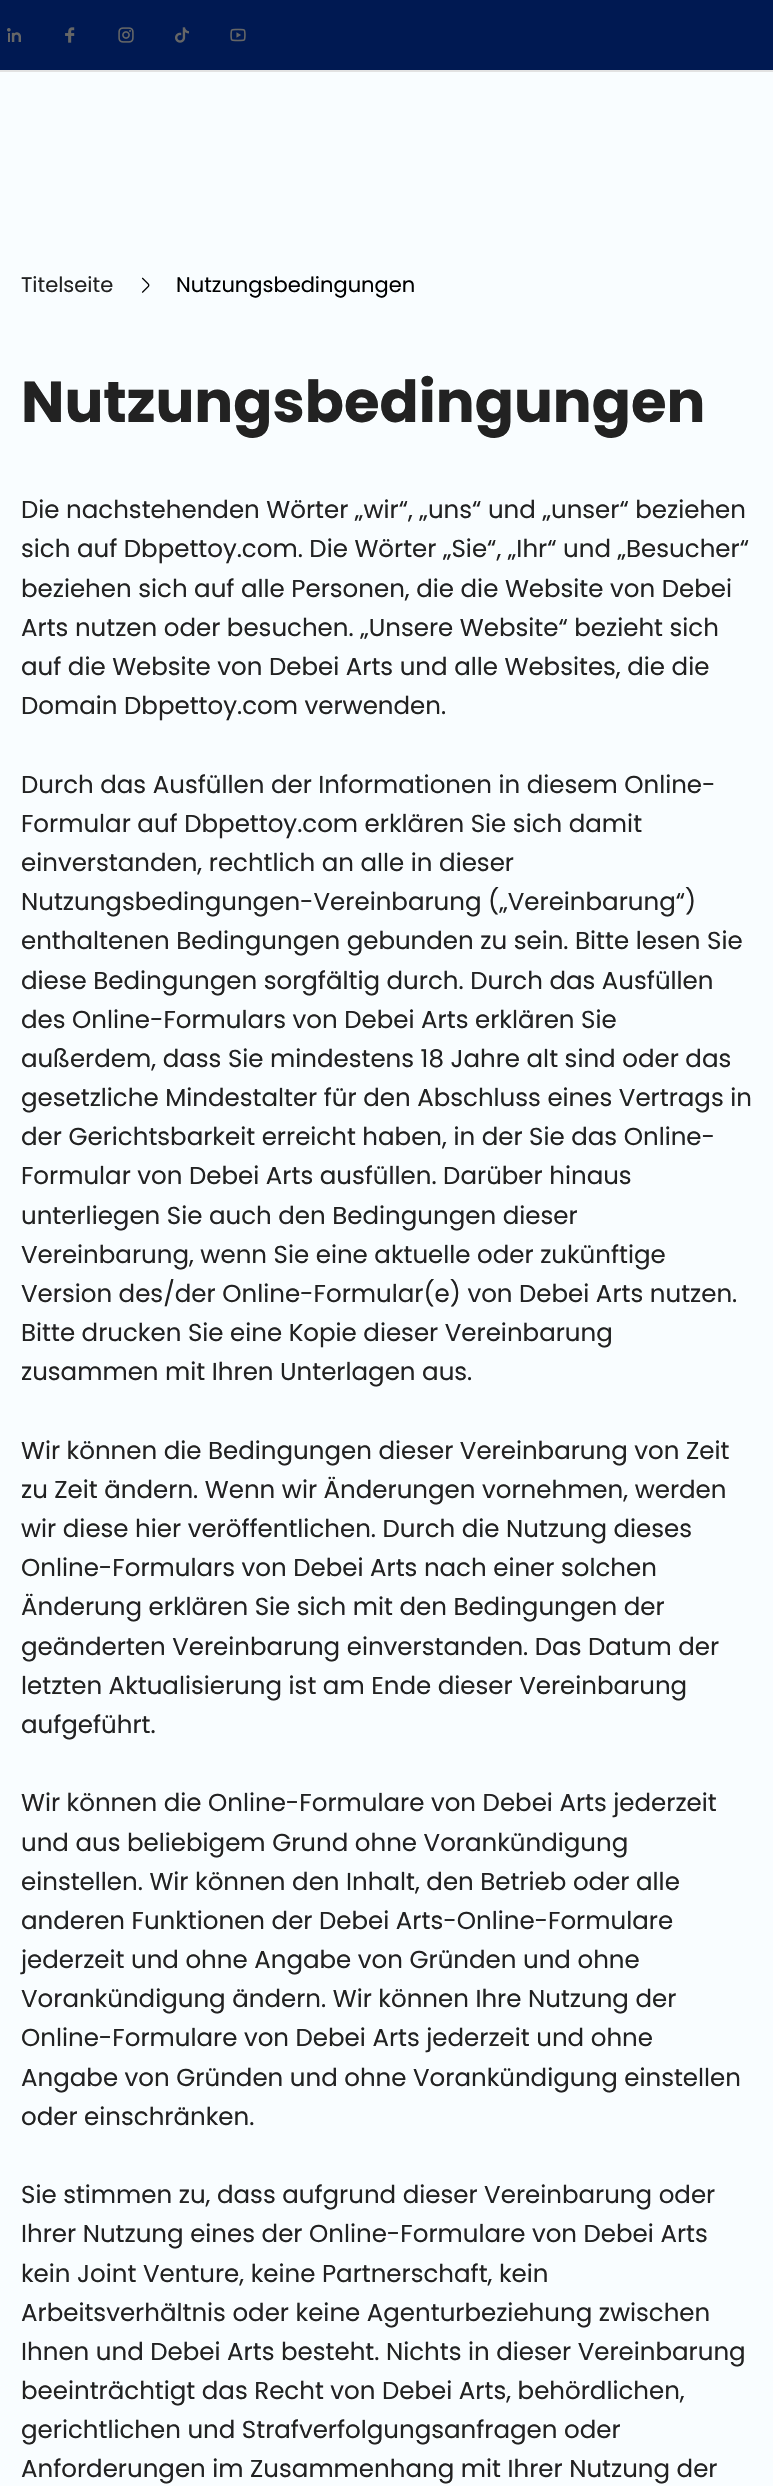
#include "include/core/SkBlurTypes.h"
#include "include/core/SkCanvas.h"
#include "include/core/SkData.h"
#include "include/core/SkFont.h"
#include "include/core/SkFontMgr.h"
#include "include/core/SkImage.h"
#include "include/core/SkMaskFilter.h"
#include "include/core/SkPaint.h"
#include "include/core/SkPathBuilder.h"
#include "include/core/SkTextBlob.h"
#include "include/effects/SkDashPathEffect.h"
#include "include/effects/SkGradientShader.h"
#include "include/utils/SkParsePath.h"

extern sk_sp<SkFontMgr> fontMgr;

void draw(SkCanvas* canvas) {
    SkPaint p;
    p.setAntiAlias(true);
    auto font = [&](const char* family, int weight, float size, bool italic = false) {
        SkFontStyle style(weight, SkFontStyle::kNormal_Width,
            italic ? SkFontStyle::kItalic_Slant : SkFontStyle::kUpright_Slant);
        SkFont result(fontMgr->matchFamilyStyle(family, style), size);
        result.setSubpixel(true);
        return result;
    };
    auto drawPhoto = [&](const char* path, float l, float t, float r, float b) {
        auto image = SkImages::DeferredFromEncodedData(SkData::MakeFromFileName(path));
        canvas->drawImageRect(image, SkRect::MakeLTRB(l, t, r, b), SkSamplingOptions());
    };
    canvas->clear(0xFFF9FDFF);
    p.setColor(0xFF001952);
    canvas->drawRect(SkRect::MakeLTRB(0, 0, 773, 70), p);
    drawPhoto("media/1.png", 7, 28, 21, 42);
    drawPhoto("media/2.png", 65, 27, 75, 43);
    drawPhoto("media/3.png", 118, 27, 134, 43);
    drawPhoto("media/4.png", 175, 27, 189, 43);
    drawPhoto("media/5.png", 230, 28, 246, 42);
    p.setColor(0xFFE2E2E2);
    canvas->drawRect(SkRect::MakeLTRB(0, 70, 773, 72), p);
    auto font1 = font("Poppins", 400, 21);
    p.setColor(0xFF222222);
    canvas->drawString("Titelseite", 21, 292, font1, p);
    drawPhoto("media/6.png", 141, 277, 150, 293);
    p.setColor(0xFF000000);
    canvas->drawString("Nutzungsbedingungen", 176, 292, font1, p);
    auto font2 = font("Poppins", 700, 57.75f);
    p.setColor(0xFF222222);
    canvas->drawString("Nutzungsbedingungen", 21, 422, font2, p);
    auto font3 = font("Poppins", 400, 24.5f);
    {
        const struct { const char* s; float x, y; } items[] = {
            {"Die nachstehenden Wörter „wir“, „uns“ und „unser“ beziehen", 21, 518},
            {"sich auf Dbpettoy.com. Die Wörter „Sie“, „Ihr“ und „Besucher“", 21, 557},
            {"beziehen sich auf alle Personen, die die Website von Debei", 21, 597},
            {"Arts nutzen oder besuchen. „Unsere Website“ bezieht sich", 21, 636},
            {"auf die Website von Debei Arts und alle Websites, die die", 21, 675},
            {"Domain Dbpettoy.com verwenden.", 21, 714},
            {"Durch das Ausfüllen der Informationen in diesem Online-", 21, 793},
            {"Formular auf Dbpettoy.com erklären Sie sich damit", 21, 832},
            {"einverstanden, rechtlich an alle in dieser", 21, 871},
            {"Nutzungsbedingungen-Vereinbarung („Vereinbarung“)", 21, 910},
            {"enthaltenen Bedingungen gebunden zu sein. Bitte lesen Sie", 21, 949},
            {"diese Bedingungen sorgfältig durch. Durch das Ausfüllen", 21, 989},
            {"des Online-Formulars von Debei Arts erklären Sie", 21, 1028},
            {"außerdem, dass Sie mindestens 18 Jahre alt sind oder das", 21, 1067},
            {"gesetzliche Mindestalter für den Abschluss eines Vertrags in", 21, 1106},
            {"der Gerichtsbarkeit erreicht haben, in der Sie das Online-", 21, 1145},
            {"Formular von Debei Arts ausfüllen. Darüber hinaus", 21, 1184},
            {"unterliegen Sie auch den Bedingungen dieser", 21, 1224},
            {"Vereinbarung, wenn Sie eine aktuelle oder zukünftige", 21, 1263},
            {"Version des/der Online-Formular(e) von Debei Arts nutzen.", 21, 1302},
            {"Bitte drucken Sie eine Kopie dieser Vereinbarung", 21, 1341},
            {"zusammen mit Ihren Unterlagen aus.", 21, 1380},
            {"Wir können die Bedingungen dieser Vereinbarung von Zeit", 21, 1459},
            {"zu Zeit ändern. Wenn wir Änderungen vornehmen, werden", 21, 1498},
            {"wir diese hier veröffentlichen. Durch die Nutzung dieses", 21, 1537},
            {"Online-Formulars von Debei Arts nach einer solchen", 21, 1576},
            {"Änderung erklären Sie sich mit den Bedingungen der", 21, 1615},
            {"geänderten Vereinbarung einverstanden. Das Datum der", 21, 1655},
            {"letzten Aktualisierung ist am Ende dieser Vereinbarung", 21, 1694},
            {"aufgeführt.", 21, 1733},
            {"Wir können die Online-Formulare von Debei Arts jederzeit", 21, 1811},
            {"und aus beliebigem Grund ohne Vorankündigung", 21, 1851},
            {"einstellen. Wir können den Inhalt, den Betrieb oder alle", 21, 1890},
            {"anderen Funktionen der Debei Arts-Online-Formulare", 21, 1929},
            {"jederzeit und ohne Angabe von Gründen und ohne", 21, 1968},
            {"Vorankündigung ändern. Wir können Ihre Nutzung der", 21, 2007},
            {"Online-Formulare von Debei Arts jederzeit und ohne", 21, 2046},
            {"Angabe von Gründen und ohne Vorankündigung einstellen", 21, 2086},
            {"oder einschränken.", 21, 2125},
            {"Sie stimmen zu, dass aufgrund dieser Vereinbarung oder", 21, 2203},
            {"Ihrer Nutzung eines der Online-Formulare von Debei Arts", 21, 2242},
            {"kein Joint Venture, keine Partnerschaft, kein", 21, 2282},
            {"Arbeitsverhältnis oder keine Agenturbeziehung zwischen", 21, 2321},
            {"Ihnen und Debei Arts besteht. Nichts in dieser Vereinbarung", 21, 2360},
            {"beeinträchtigt das Recht von Debei Arts, behördlichen,", 21, 2399},
            {"gerichtlichen und Strafverfolgungsanfragen oder", 21, 2438},
            {"Anforderungen im Zusammenhang mit Ihrer Nutzung der", 21, 2477},
        };
        for (auto [s, x, y] : items) {
            canvas->drawString(s, x, y, font3, p);
        }
    }
}
